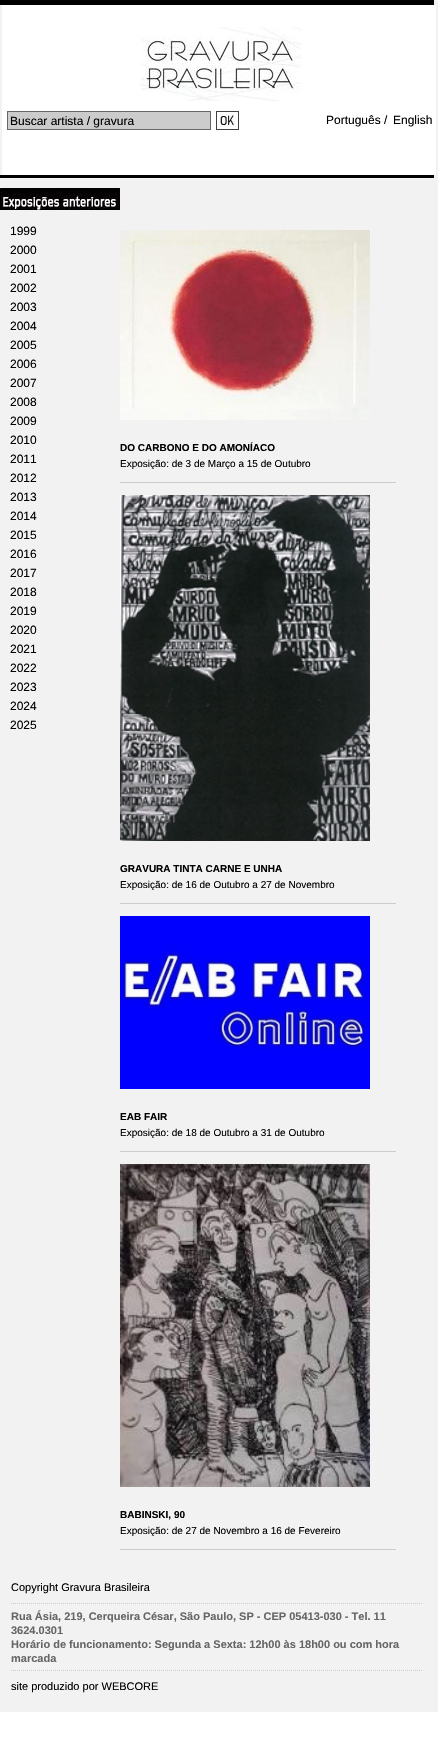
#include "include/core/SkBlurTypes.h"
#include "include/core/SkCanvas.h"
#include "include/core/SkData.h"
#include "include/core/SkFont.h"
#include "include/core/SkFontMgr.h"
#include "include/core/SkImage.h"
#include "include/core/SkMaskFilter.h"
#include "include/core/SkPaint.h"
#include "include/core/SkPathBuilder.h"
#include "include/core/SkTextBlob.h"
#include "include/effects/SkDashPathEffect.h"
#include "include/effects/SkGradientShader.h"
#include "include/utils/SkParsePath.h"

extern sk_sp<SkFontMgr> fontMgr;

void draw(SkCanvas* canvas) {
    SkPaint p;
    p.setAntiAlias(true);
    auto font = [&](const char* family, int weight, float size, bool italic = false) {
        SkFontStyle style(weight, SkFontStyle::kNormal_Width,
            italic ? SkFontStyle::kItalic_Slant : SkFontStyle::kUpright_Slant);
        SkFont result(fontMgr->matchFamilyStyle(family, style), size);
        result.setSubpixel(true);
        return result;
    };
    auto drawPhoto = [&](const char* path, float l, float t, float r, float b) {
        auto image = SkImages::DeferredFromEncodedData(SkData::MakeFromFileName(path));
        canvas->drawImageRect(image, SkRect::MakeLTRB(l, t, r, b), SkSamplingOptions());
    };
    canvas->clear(0xFFFFFFFF);
    {
        const struct { float l, t, r, b; SkColor color; } items[] = {
            {0, 0, 438, 1712, 0xFFF2F2F2},
            {0, 0, 434, 5, 0xFF000000},
            {2, 5, 436, 175, 0xFFFFFFFF},
        };
        for (auto [l, t, r, b, color] : items) {
            p.setColor(color);
            canvas->drawRect(SkRect::MakeLTRB(l, t, r, b), p);
        }
    }
    drawPhoto("media/1.png", 140, 27, 302, 101);
    p.setColor(0xFFCCCCCC);
    canvas->drawRect(SkRect::MakeLTRB(7.5f, 111.5f, 210.5f, 129.5f), p);
    p.setStyle(SkPaint::kStroke_Style);
    p.setStrokeWidth(1);
    p.setColor(0xFF666666);
    canvas->drawRect(SkRect::MakeLTRB(7.5f, 111.5f, 210.5f, 129.5f), p);
    auto font1 = font("Liberation Sans", 400, 12);
    p.setStyle(SkPaint::kFill_Style);
    p.setColor(0xFF000000);
    canvas->drawString("Buscar artista / gravura", 10, 125, font1, p);
    drawPhoto("media/2.png", 217, 112, 235, 127);
    p.setStyle(SkPaint::kStroke_Style);
    p.setColor(0xFF414141);
    canvas->drawRect(SkRect::MakeLTRB(216.5f, 111.5f, 238.5f, 129.5f), p);
    p.setStyle(SkPaint::kFill_Style);
    p.setColor(0xFF000000);
    canvas->drawString("Português /", 326, 124, font1, p);
    canvas->drawString("English", 393, 124, font1, p);
    canvas->drawRect(SkRect::MakeLTRB(0, 175, 434, 178), p);
    drawPhoto("media/3.png", 0, 188, 120, 210);
    {
        const struct { const char* s; float x, y; } items[] = {
            {"1999", 10, 235},
            {"2000", 10, 254},
            {"2001", 10, 273},
            {"2002", 10, 292},
            {"2003", 10, 311},
            {"2004", 10, 330},
            {"2005", 10, 349},
            {"2006", 10, 368},
            {"2007", 10, 387},
            {"2008", 10, 406},
            {"2009", 10, 425},
            {"2010", 10, 444},
            {"2011", 10, 463},
            {"2012", 10, 482},
            {"2013", 10, 501},
            {"2014", 10, 520},
            {"2015", 10, 539},
            {"2016", 10, 558},
            {"2017", 10, 577},
            {"2018", 10, 596},
            {"2019", 10, 615},
            {"2020", 10, 634},
            {"2021", 10, 653},
            {"2022", 10, 672},
            {"2023", 10, 691},
            {"2024", 10, 710},
            {"2025", 10, 729},
        };
        for (auto [s, x, y] : items) {
            canvas->drawString(s, x, y, font1, p);
        }
    }
    drawPhoto("media/4.png", 120, 230, 370, 420);
    auto font2 = font("Liberation Sans", 700, 10);
    canvas->drawString("DO CARBONO E DO AMONÍACO", 120, 451, font2, p);
    p.setColor(0xFFCCCCCC);
    canvas->drawRect(SkRect::MakeLTRB(120, 482, 396, 483), p);
    auto font3 = font("Liberation Sans", 400, 10);
    p.setColor(0xFF000000);
    canvas->drawString("Exposição: de 3 de Março a 15 de Outubro", 120, 467, font3, p);
    drawPhoto("media/5.png", 120, 495, 370, 841);
    canvas->drawString("GRAVURA TINTA CARNE E UNHA", 120, 872, font2, p);
    p.setColor(0xFFCCCCCC);
    canvas->drawRect(SkRect::MakeLTRB(120, 903, 396, 904), p);
    p.setColor(0xFF000000);
    canvas->drawString("Exposição: de 16 de Outubro a 27 de Novembro", 120, 888, font3, p);
    drawPhoto("media/6.png", 120, 916, 370, 1089);
    canvas->drawString("EAB FAIR", 120, 1120, font2, p);
    p.setColor(0xFFCCCCCC);
    canvas->drawRect(SkRect::MakeLTRB(120, 1151, 396, 1152), p);
    p.setColor(0xFF000000);
    canvas->drawString("Exposição: de 18 de Outubro a 31 de Outubro", 120, 1136, font3, p);
    drawPhoto("media/7.png", 120, 1164, 370, 1487);
    canvas->drawString("BABINSKI, 90", 120, 1518, font2, p);
    p.setColor(0xFFCCCCCC);
    canvas->drawRect(SkRect::MakeLTRB(120, 1549, 396, 1550), p);
    p.setColor(0xFF000000);
    canvas->drawString("Exposição: de 27 de Novembro a 16 de Fevereiro", 120, 1534, font3, p);
    auto font4 = font("Liberation Sans", 400, 11);
    canvas->drawString("Copyright Gravura Brasileira", 11, 1591, font4, p);
    p.setStyle(SkPaint::kStroke_Style);
    p.setColor(0xFFCCCCCC);
    p.setPathEffect(SkDashPathEffect::Make({{1, 1}}, 0));
    canvas->drawPath(SkPathBuilder().moveTo(11, 1603.5f).lineTo(423, 1603.5f).detach(), p);
    p.setPathEffect(nullptr);
    p.setPathEffect(SkDashPathEffect::Make({{1, 1}}, 0));
    canvas->drawPath(SkPathBuilder().moveTo(11, 1670.5f).lineTo(423, 1670.5f).detach(), p);
    p.setPathEffect(nullptr);
    auto font5 = font("Liberation Sans", 700, 11);
    p.setStyle(SkPaint::kFill_Style);
    p.setColor(0xFF666666);
    {
        const struct { const char* s; float x, y; } items[] = {
            {"Rua Ásia, 219, Cerqueira César, São Paulo, SP - CEP 05413-030 - Tel. 11", 11, 1620},
            {"3624.0301", 11, 1634},
            {"Horário de funcionamento: Segunda a Sexta: 12h00 às 18h00 ou com hora", 11, 1648},
            {"marcada", 11, 1662},
        };
        for (auto [s, x, y] : items) {
            canvas->drawString(s, x, y, font5, p);
        }
    }
    p.setColor(0xFF000000);
    canvas->drawString("site produzido por WEBCORE", 11, 1690, font4, p);
}
